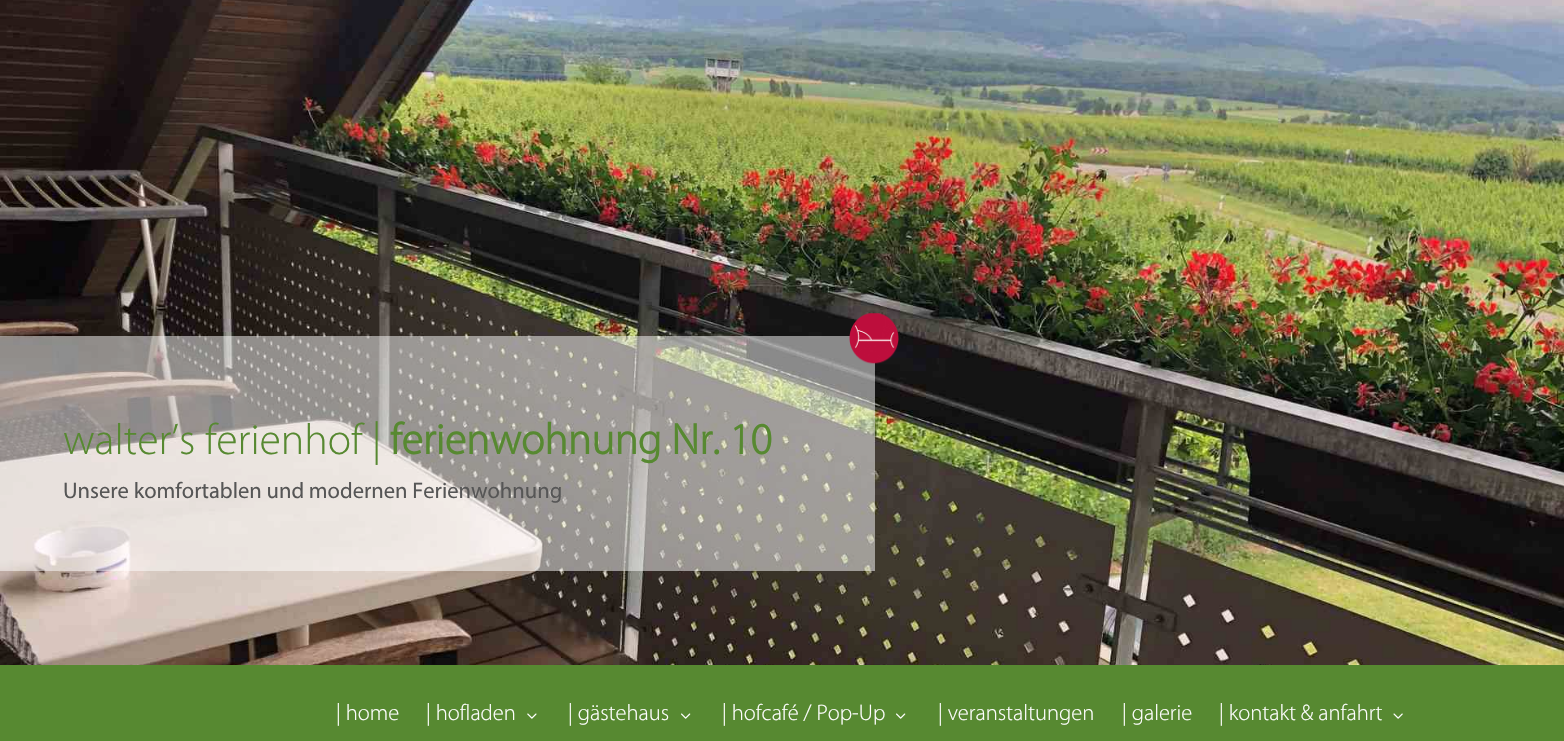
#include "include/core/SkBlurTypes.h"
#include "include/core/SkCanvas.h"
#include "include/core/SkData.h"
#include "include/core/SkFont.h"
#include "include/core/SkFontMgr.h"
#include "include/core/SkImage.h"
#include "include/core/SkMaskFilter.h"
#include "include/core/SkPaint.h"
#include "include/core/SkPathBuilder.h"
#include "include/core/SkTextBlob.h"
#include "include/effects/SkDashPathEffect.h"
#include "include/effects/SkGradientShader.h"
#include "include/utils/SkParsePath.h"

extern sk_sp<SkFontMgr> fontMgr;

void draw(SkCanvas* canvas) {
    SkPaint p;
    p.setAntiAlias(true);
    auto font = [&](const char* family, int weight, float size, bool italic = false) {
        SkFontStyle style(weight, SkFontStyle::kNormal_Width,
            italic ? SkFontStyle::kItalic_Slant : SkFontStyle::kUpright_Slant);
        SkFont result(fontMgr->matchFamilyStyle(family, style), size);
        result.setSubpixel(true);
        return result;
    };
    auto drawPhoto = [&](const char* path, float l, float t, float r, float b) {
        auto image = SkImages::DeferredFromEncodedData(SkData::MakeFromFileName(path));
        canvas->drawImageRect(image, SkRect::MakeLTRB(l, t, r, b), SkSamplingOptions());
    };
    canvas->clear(0xFFFFFFFF);
    drawPhoto("media/1.png", 0, 0, 1564, 665);
    p.setColor(0x80FFFFFF);
    canvas->drawRect(SkRect::MakeLTRB(0, 336, 875, 571), p);
    drawPhoto("media/2.png", 849, 313, 899, 364);
    auto font1 = font("Myriad", 300, 43.75f);
    p.setColor(0xFF578931);
    canvas->drawString("walter’s ferienhof |", 63, 454, font1, p);
    auto font2 = font("Myriad", 700, 43.75f);
    canvas->drawString("ferienwohnung Nr. 10", 390, 454, font2, p);
    auto font3 = font("Myriad", 400, 22.5f);
    p.setColor(0xFF565656);
    canvas->drawString("Unsere komfortablen und modernen Ferienwohnung", 63, 498, font3, p);
    p.setColor(0xFF578931);
    canvas->drawRect(SkRect::MakeLTRB(0, 665, 1564, 741), p);
    auto font4 = font("Myriad", 300, 22.5f);
    p.setColor(0xFFFFFFFF);
    canvas->drawString("| home", 336, 720, font4, p);
    canvas->drawString("| hofladen", 426, 720, font4, p);
    drawPhoto("media/3.png", 527, 713, 537, 719);
    canvas->drawString("| gästehaus", 568, 720, font4, p);
    drawPhoto("media/4.png", 681, 713, 691, 719);
    canvas->drawString("| hofcafé / Pop-Up", 722, 720, font4, p);
    drawPhoto("media/4.png", 896, 713, 906, 719);
    {
        const struct { const char* s; float x, y; } items[] = {
            {"| veranstaltungen", 938, 720},
            {"| galerie", 1122, 720},
            {"| kontakt & anfahrt", 1219, 720},
        };
        for (auto [s, x, y] : items) {
            canvas->drawString(s, x, y, font4, p);
        }
    }
    drawPhoto("media/5.png", 1393, 713, 1403, 719);
}
